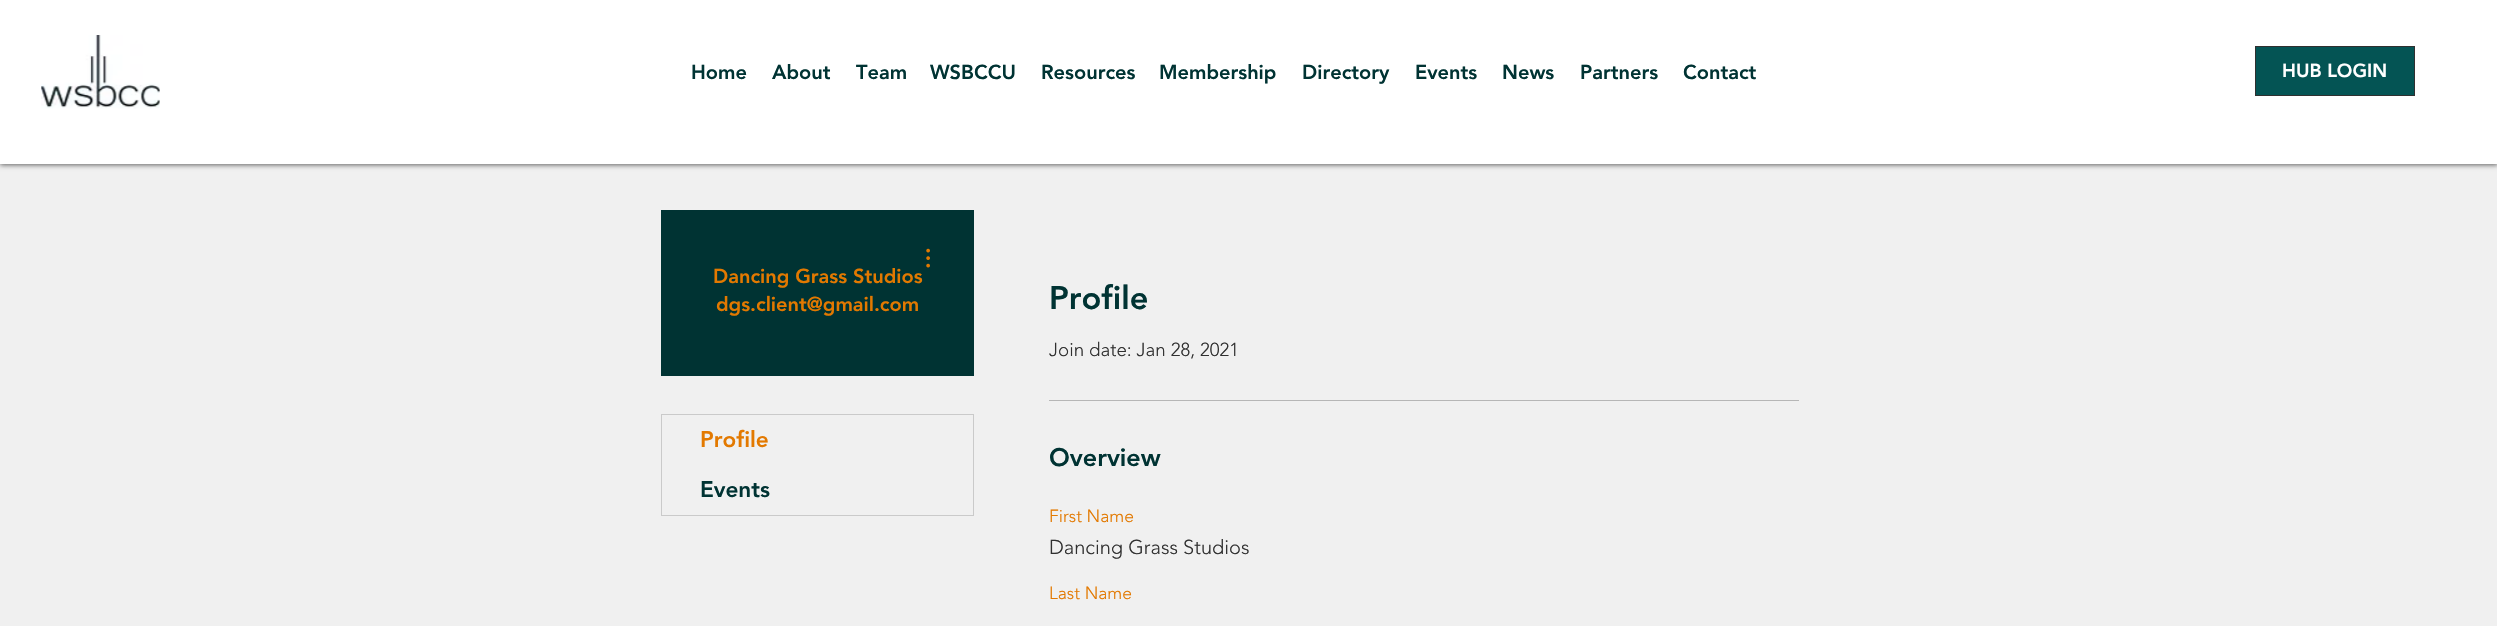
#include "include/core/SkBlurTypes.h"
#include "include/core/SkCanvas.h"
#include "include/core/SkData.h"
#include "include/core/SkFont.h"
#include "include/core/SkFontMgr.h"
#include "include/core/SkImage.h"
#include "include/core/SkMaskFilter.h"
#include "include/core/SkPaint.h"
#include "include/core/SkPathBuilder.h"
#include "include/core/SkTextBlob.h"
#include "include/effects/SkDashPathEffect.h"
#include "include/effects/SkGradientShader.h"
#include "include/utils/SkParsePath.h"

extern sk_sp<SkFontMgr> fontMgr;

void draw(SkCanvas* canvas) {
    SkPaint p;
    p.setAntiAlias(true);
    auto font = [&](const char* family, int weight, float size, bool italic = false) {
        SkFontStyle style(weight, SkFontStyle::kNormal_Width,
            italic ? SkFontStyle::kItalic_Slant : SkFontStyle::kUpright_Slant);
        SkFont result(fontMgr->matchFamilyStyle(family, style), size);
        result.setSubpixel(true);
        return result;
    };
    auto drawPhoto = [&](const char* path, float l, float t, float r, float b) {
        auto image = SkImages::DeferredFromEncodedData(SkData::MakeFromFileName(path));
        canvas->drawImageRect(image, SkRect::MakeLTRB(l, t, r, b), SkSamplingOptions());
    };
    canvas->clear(0xFFF0F0F0);
    p.setColor(0x99000000);
    p.setMaskFilter(SkMaskFilter::MakeBlur(kNormal_SkBlurStyle, 2.5f));
    canvas->drawRect(SkRect::MakeLTRB(0, 1, 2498, 165), p);
    p.setMaskFilter(nullptr);
    p.setColor(0xFFFFFFFF);
    canvas->drawRect(SkRect::MakeLTRB(0, 0, 2497, 164), p);
    drawPhoto("media/1.png", 41, 35, 160, 109);
    auto font1 = font("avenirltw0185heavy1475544", 900, 20);
    p.setColor(0xFF003333);
    {
        const struct { const char* s; float x, y; } items[] = {
            {"Home", 691, 79},
            {"About", 772, 79},
            {"Team", 856, 79},
            {"WSBCCU", 930, 79},
            {"Resources", 1041, 79},
            {"Membership", 1159, 79},
            {"Directory", 1302, 79},
            {"Events", 1415, 79},
            {"News", 1502, 79},
            {"Partners", 1580, 79},
            {"Contact", 1683, 79},
        };
        for (auto [s, x, y] : items) {
            canvas->drawString(s, x, y, font1, p);
        }
    }
    p.setColor(0xFF045454);
    canvas->drawRect(SkRect::MakeLTRB(2255.5f, 46.5f, 2414.5f, 95.5f), p);
    p.setStyle(SkPaint::kStroke_Style);
    p.setStrokeWidth(1);
    p.setColor(0xFF303030);
    canvas->drawRect(SkRect::MakeLTRB(2255.5f, 46.5f, 2414.5f, 95.5f), p);
    auto font2 = font("avenirltw0185heavy1475544", 900, 18.75f);
    p.setStyle(SkPaint::kFill_Style);
    p.setColor(0xFFFFFFFF);
    canvas->drawString("HUB LOGIN", 2282, 77, font2, p);
    p.setColor(0xFF003333);
    canvas->drawRect(SkRect::MakeLTRB(661, 210, 974, 376), p);
    drawPhoto("media/2.png", 926, 248, 930, 268);
    p.setColor(0xFFE37900);
    canvas->drawString("Dancing Grass Studios", 713, 283, font1, p);
    canvas->drawString("dgs.client@gmail.com", 716, 311, font1, p);
    p.setStyle(SkPaint::kStroke_Style);
    p.setColor(0xFFCACACA);
    canvas->drawRect(SkRect::MakeLTRB(661.5f, 414.5f, 973.5f, 515.5f), p);
    auto font3 = font("avenirltw0185heavy1475544", 900, 22.5f);
    p.setStyle(SkPaint::kFill_Style);
    p.setColor(0xFFE37900);
    canvas->drawString("Profile", 700, 447, font3, p);
    p.setColor(0xFF003333);
    canvas->drawString("Events", 700, 497, font3, p);
    auto font4 = font("avenirltw0185heavy1475544", 900, 32.5f);
    canvas->drawString("Profile", 1049, 309, font4, p);
    auto font5 = font("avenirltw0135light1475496", 300, 18.75f);
    p.setColor(0xFF303030);
    canvas->drawString("Join date: Jan 28, 2021", 1049, 356, font5, p);
    p.setColor(0xFFB6B6B6);
    canvas->drawRect(SkRect::MakeLTRB(1049, 400, 1799, 401), p);
    auto font6 = font("avenirltw0185heavy1475544", 900, 25);
    p.setColor(0xFF003333);
    canvas->drawString("Overview", 1049, 466, font6, p);
    auto font7 = font("avenirltw0135light1475496", 300, 17.5f);
    p.setColor(0xFFE37900);
    canvas->drawString("First Name", 1049, 522, font7, p);
    auto font8 = font("avenirltw0135light1475496", 300, 20);
    p.setColor(0xFF303030);
    canvas->drawString("Dancing Grass Studios", 1049, 554, font8, p);
    p.setColor(0xFFE37900);
    canvas->drawString("Last Name", 1049, 599, font7, p);
}
